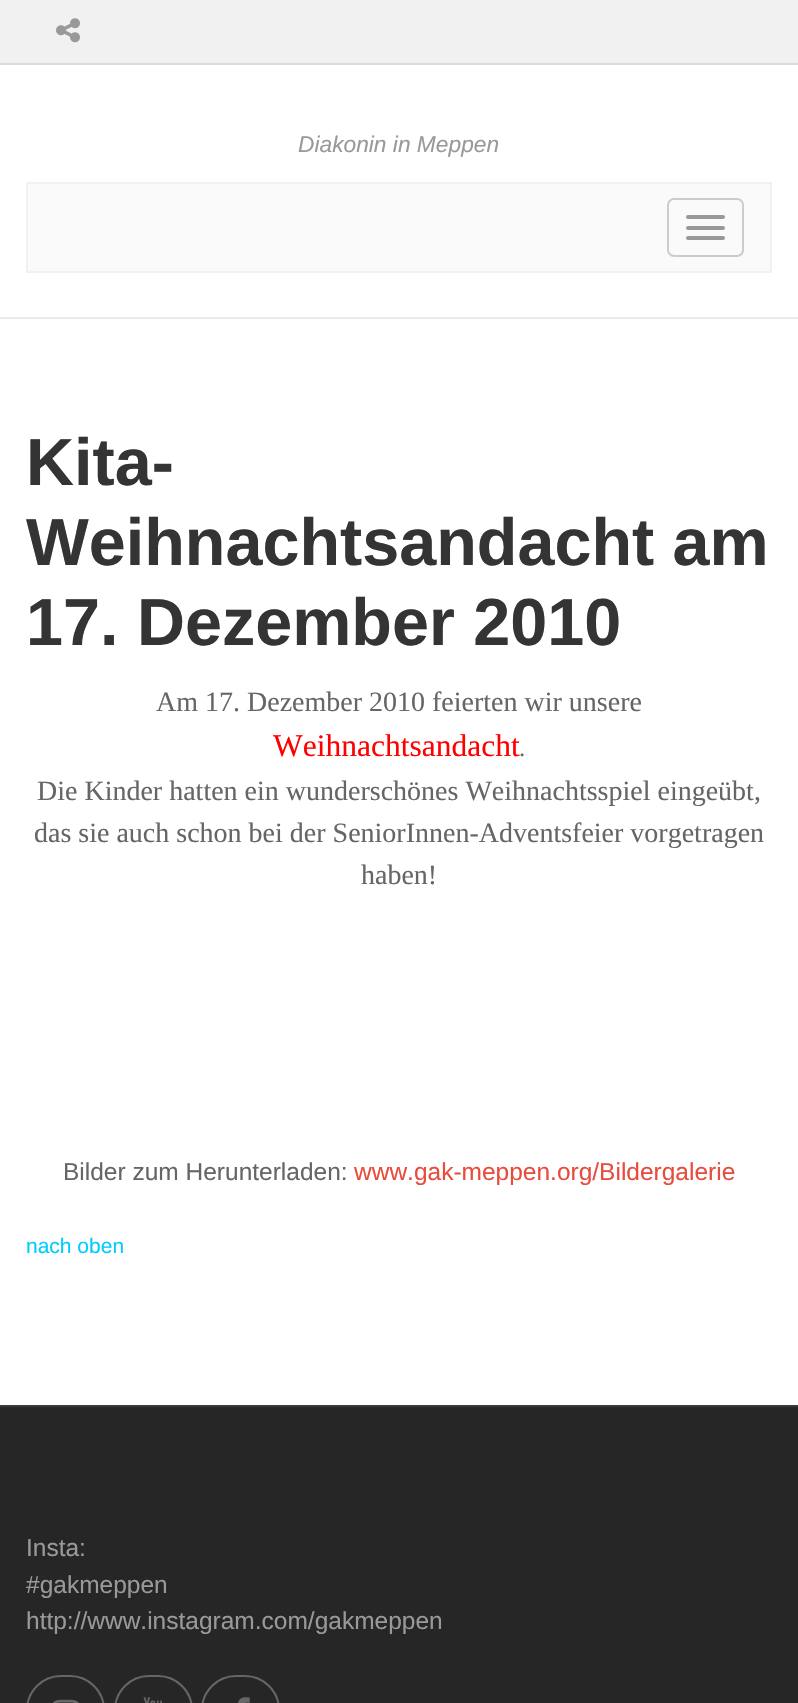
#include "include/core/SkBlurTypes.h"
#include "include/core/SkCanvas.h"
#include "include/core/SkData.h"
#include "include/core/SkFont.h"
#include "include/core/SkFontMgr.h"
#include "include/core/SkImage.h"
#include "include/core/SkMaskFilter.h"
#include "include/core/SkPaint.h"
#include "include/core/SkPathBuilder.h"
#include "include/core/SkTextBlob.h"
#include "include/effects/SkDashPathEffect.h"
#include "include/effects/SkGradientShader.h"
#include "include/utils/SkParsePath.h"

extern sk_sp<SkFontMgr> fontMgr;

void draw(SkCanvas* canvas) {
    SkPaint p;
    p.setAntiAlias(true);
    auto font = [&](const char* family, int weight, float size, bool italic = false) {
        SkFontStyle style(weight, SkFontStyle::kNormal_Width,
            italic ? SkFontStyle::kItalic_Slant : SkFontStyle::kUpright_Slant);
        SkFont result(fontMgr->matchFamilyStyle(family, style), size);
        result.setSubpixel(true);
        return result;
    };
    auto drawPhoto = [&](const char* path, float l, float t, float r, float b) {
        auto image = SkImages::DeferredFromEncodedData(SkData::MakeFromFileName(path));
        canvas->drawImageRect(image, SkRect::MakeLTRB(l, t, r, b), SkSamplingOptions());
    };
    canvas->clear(0xFFFFFFFF);
    p.setColor(0xFFF1F1F1);
    canvas->drawRect(SkRect::MakeLTRB(0, 0, 798, 63), p);
    p.setColor(0xFFDADADA);
    canvas->drawRect(SkRect::MakeLTRB(0, 63, 798, 65), p);
    drawPhoto("media/1.png", 56, 18, 80, 43);
    p.setColor(0xFFEAEAEA);
    canvas->drawRect(SkRect::MakeLTRB(0, 317, 798, 319), p);
    auto font1 = font("Liberation Sans", 400, 22.75f, true);
    p.setColor(0xFF999999);
    canvas->drawString("Diakonin in Meppen", 298, 152, font1, p);
    p.setColor(0xFFFAFAFA);
    canvas->drawRect(SkRect::MakeLTRB(27, 183, 771, 272), p);
    p.setStyle(SkPaint::kStroke_Style);
    p.setStrokeWidth(2);
    p.setColor(0xFFF1F1F1);
    canvas->drawRect(SkRect::MakeLTRB(27, 183, 771, 272), p);
    p.setColor(0xFFCCCCCC);
    canvas->drawRoundRect(SkRect::MakeLTRB(668, 199, 743, 256), 6, 6, p);
    p.setStyle(SkPaint::kFill_Style);
    p.setColor(0xFF999999);
    canvas->drawRoundRect(SkRect::MakeLTRB(686, 215, 725, 219), 2, 2, p);
    canvas->drawRoundRect(SkRect::MakeLTRB(686, 226, 725, 230), 2, 2, p);
    canvas->drawRoundRect(SkRect::MakeLTRB(686, 236, 725, 240), 2, 2, p);
    auto font2 = font("Liberation Sans", 700, 66.5f);
    p.setColor(0xFF343434);
    {
        const struct { const char* s; float x, y; } items[] = {
            {"Kita-", 26, 485},
            {"Weihnachtsandacht am", 26, 565},
            {"17. Dezember 2010", 26, 645},
        };
        for (auto [s, x, y] : items) {
            canvas->drawString(s, x, y, font2, p);
        }
    }
    auto font3 = font("Liberation Serif", 400, 28);
    p.setColor(0xFF666666);
    canvas->drawString("Am 17. Dezember 2010 feierten wir unsere", 156, 711, font3, p);
    auto font4 = font("Liberation Serif", 400, 31.5f);
    p.setColor(0xFFFF0000);
    canvas->drawString("Weihnachtsandacht", 273, 756, font4, p);
    auto font5 = font("Liberation Serif", 400, 24.5f);
    p.setColor(0xFF666666);
    canvas->drawString(".", 519, 756, font5, p);
    {
        const struct { const char* s; float x, y; } items[] = {
            {"Die Kinder hatten ein wunderschönes Weihnachtsspiel eingeübt,", 37, 800},
            {"das sie auch schon bei der SeniorInnen-Adventsfeier vorgetragen", 34, 842},
            {"haben!", 361, 884},
        };
        for (auto [s, x, y] : items) {
            canvas->drawString(s, x, y, font3, p);
        }
    }
    auto font6 = font("Liberation Sans", 400, 24.5f);
    canvas->drawString("Bilder zum Herunterladen:", 63, 1180, font6, p);
    p.setColor(0xFFE84C3D);
    canvas->drawString("www.gak-meppen.org/Bildergalerie", 354, 1180, font6, p);
    auto font7 = font("Liberation Sans", 400, 21);
    p.setColor(0xFF00CCFF);
    canvas->drawString("nach oben", 26, 1253, font7, p);
    p.setColor(0xFF262626);
    canvas->drawRect(SkRect::MakeLTRB(0, 1407, 798, 1703), p);
    p.setColor(0xFF3A3A3A);
    canvas->drawRect(SkRect::MakeLTRB(0, 1405, 798, 1407), p);
    p.setColor(0xFF999999);
    {
        const struct { const char* s; float x, y; } items[] = {
            {"Insta:", 26, 1556},
            {"#gakmeppen", 26, 1593},
            {"http://www.instagram.com/gakmeppen", 26, 1629},
        };
        for (auto [s, x, y] : items) {
            canvas->drawString(s, x, y, font6, p);
        }
    }
    p.setStyle(SkPaint::kStroke_Style);
    p.setColor(0xFF666666);
    canvas->drawRoundRect(SkRect::MakeLTRB(27, 1676, 104, 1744), 38.5f, 38.5f, p);
    drawPhoto("media/2.png", 52, 1699, 79, 1703);
    canvas->drawRoundRect(SkRect::MakeLTRB(115, 1676, 192, 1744), 38.5f, 38.5f, p);
    drawPhoto("media/3.png", 143, 1697, 162, 1703);
    canvas->drawRoundRect(SkRect::MakeLTRB(202, 1676, 279, 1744), 38.5f, 38.5f, p);
    drawPhoto("media/4.png", 238, 1697, 250, 1703);
}
